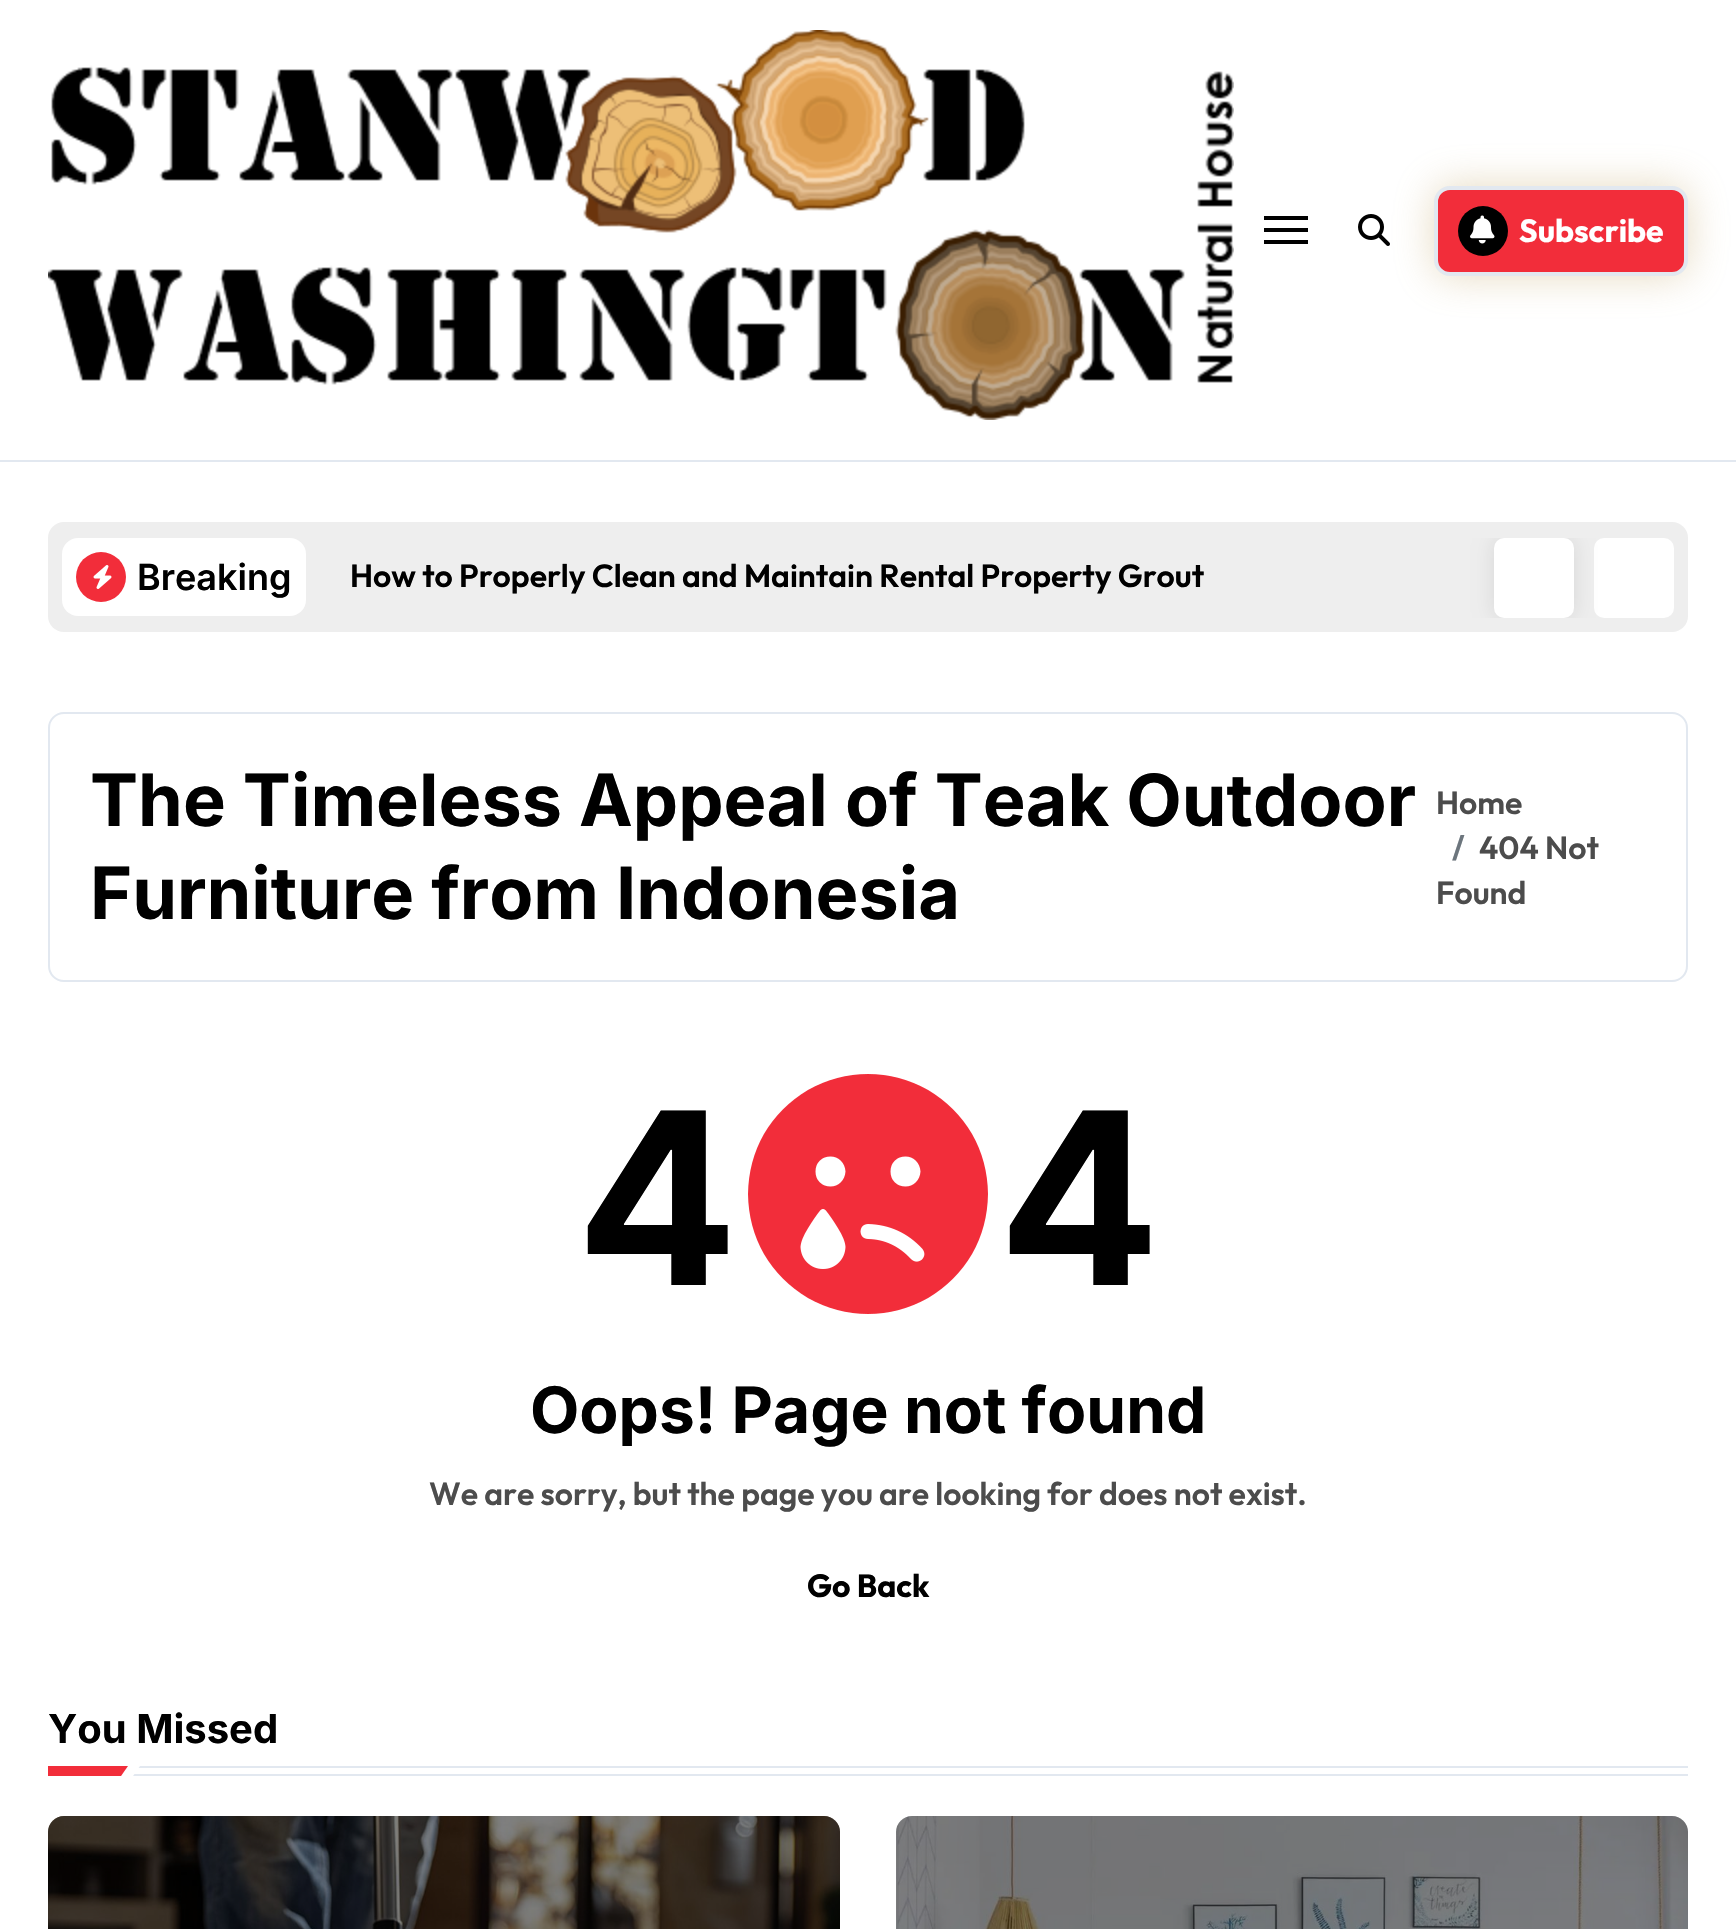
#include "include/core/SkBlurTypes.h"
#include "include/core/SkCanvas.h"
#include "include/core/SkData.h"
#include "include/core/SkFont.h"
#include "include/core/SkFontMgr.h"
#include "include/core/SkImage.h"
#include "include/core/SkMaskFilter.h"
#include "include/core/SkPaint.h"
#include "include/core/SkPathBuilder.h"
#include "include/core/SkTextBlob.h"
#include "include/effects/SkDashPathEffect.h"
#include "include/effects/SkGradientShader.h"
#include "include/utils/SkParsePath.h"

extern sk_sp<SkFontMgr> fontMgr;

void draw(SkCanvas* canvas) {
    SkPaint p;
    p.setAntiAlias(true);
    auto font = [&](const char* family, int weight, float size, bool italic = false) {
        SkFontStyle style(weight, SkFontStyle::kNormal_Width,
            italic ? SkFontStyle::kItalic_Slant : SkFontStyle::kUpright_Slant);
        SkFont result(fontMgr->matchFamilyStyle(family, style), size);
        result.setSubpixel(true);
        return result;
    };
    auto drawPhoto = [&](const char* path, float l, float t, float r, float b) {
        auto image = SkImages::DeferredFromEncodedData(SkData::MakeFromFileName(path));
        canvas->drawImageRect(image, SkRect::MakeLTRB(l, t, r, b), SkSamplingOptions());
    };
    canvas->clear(0xFFFFFFFF);
    p.setColor(0xFFE2E8F0);
    canvas->drawRect(SkRect::MakeLTRB(0, 460, 1736, 462), p);
    drawPhoto("media/1.png", 48, 30, 1234, 420);
    {
        const struct { float l, t, r, b; SkColor color; } items[] = {
            {1264, 216, 1308, 220, 0xFF000000},
            {1264, 228, 1308, 232, 0xFF000000},
            {1264, 240, 1308, 244, 0xFF000000},
        };
        for (auto [l, t, r, b, color] : items) {
            p.setColor(color);
            canvas->drawRect(SkRect::MakeLTRB(l, t, r, b), p);
        }
    }
    drawPhoto("media/2.png", 1358, 214, 1390, 246);
    p.setColor(0x66C1A362);
    p.setMaskFilter(SkMaskFilter::MakeBlur(kNormal_SkBlurStyle, 20));
    canvas->drawRoundRect(SkRect::MakeLTRB(1434, 186, 1688, 276), 16, 16, p);
    p.setMaskFilter(nullptr);
    p.setColor(0xFFF22D3A);
    canvas->drawRoundRect(SkRect::MakeLTRB(1436, 188, 1686, 274), 14, 14, p);
    p.setStyle(SkPaint::kStroke_Style);
    p.setStrokeWidth(4);
    p.setColor(0xFFE2E8F0);
    canvas->drawRoundRect(SkRect::MakeLTRB(1436, 188, 1686, 274), 14, 14, p);
    p.setStyle(SkPaint::kFill_Style);
    p.setColor(0xFF000000);
    canvas->drawCircle(1483, 231, 25, p);
    drawPhoto("media/3.png", 1470, 215, 1495, 244);
    auto font1 = font("Outfit", 700, 32);
    p.setColor(0xFFFFFFFF);
    canvas->drawString("Subscribe", 1519, 242, font1, p);
    p.setColor(0xFFEEEEEE);
    canvas->drawRoundRect(SkRect::MakeLTRB(48, 522, 1688, 632), 16, 16, p);
    p.setColor(0xFFFFFFFF);
    canvas->drawRoundRect(SkRect::MakeLTRB(62, 538, 306, 616), 16, 16, p);
    p.setColor(0xFFF22D3A);
    canvas->drawCircle(101, 577, 25, p);
    drawPhoto("media/4.png", 93, 565, 112, 589);
    auto font2 = font("Inter", 600, 36);
    p.setColor(0xFF000000);
    canvas->drawString("Breaking", 137, 590, font2, p);
    auto font3 = font("Outfit", 600, 32);
    canvas->drawString("How to Properly Clean and Maintain Rental Property Grout", 350, 587, font3, p);
    p.setColor(0xFFFFFFFF);
    canvas->drawRoundRect(SkRect::MakeLTRB(1594, 538, 1674, 618), 10, 10, p);
    canvas->save();
    canvas->clipRect(SkRect::MakeLTRB(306, 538, 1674, 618));
    p.setColor(0x1A000000);
    p.setMaskFilter(SkMaskFilter::MakeBlur(kNormal_SkBlurStyle, 10));
    canvas->drawRoundRect(SkRect::MakeLTRB(1494, 538, 1574, 618), 10, 10, p);
    p.setMaskFilter(nullptr);
    canvas->restore();
    p.setColor(0xFFFFFFFF);
    canvas->drawRoundRect(SkRect::MakeLTRB(1494, 538, 1574, 618), 10, 10, p);
    p.setStyle(SkPaint::kStroke_Style);
    p.setStrokeWidth(2);
    p.setColor(0xFFE2E8F0);
    canvas->drawRoundRect(SkRect::MakeLTRB(49, 713, 1687, 981), 15, 15, p);
    auto font4 = font("Inter", 700, 72);
    p.setStyle(SkPaint::kFill_Style);
    p.setColor(0xFF000000);
    canvas->drawString("The Timeless Appeal of Teak Outdoor", 90, 826, font4, p);
    canvas->drawString("Furniture from Indonesia", 90, 919, font4, p);
    p.setColor(0xFF4C4C4C);
    canvas->drawString("Home", 1436, 814, font3, p);
    p.setColor(0xFF6C757D);
    canvas->drawString("/", 1452, 859, font3, p);
    p.setColor(0xFF4C4C4C);
    canvas->drawString("404 Not", 1479, 859, font3, p);
    canvas->drawString("Found", 1436, 904, font3, p);
    auto font5 = font("Inter", 700, 240);
    p.setColor(0xFF000000);
    canvas->drawString("4", 576, 1285, font5, p);
    drawPhoto("media/5.png", 748, 1074, 988, 1314);
    canvas->drawString("4", 998, 1285, font5, p);
    auto font6 = font("Inter", 700, 64);
    canvas->drawString("Oops! Page not found", 530, 1433, font6, p);
    p.setColor(0xFF4C4C4C);
    canvas->drawString("We are sorry, but the page you are looking for does not exist.", 429, 1505, font3, p);
    p.setColor(0xFF000000);
    canvas->drawString("Go Back", 807, 1597, font1, p);
    auto font7 = font("Inter", 700, 40);
    canvas->drawString("You Missed", 48, 1743, font7, p);
    {
        const struct { float l, t, r, b; SkColor color; } items[] = {
            {138, 1766, 1688, 1768, 0xFFE2E8F0},
            {133, 1774, 1688, 1776, 0xFFE2E8F0},
            {48, 1766, 128, 1776, 0xFFF22D3A},
        };
        for (auto [l, t, r, b, color] : items) {
            p.setColor(color);
            canvas->drawRect(SkRect::MakeLTRB(l, t, r, b), p);
        }
    }
    p.setColor(0xFFFFFFFF);
    canvas->drawPath(SkPathBuilder().moveTo(140, 1766).lineTo(132, 1777.5f).lineTo(120, 1777.5f).lineTo(128, 1766).close().detach(), p);
    drawPhoto("media/6.png", 48, 1816, 840, 1929);
    p.setColor(0x80000000);
    canvas->drawRoundRect(SkRect::MakeLTRB(48, 1816, 840, 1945), 16, 16, p);
    drawPhoto("media/7.png", 896, 1816, 1688, 1929);
    canvas->drawRoundRect(SkRect::MakeLTRB(896, 1816, 1688, 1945), 16, 16, p);
}
